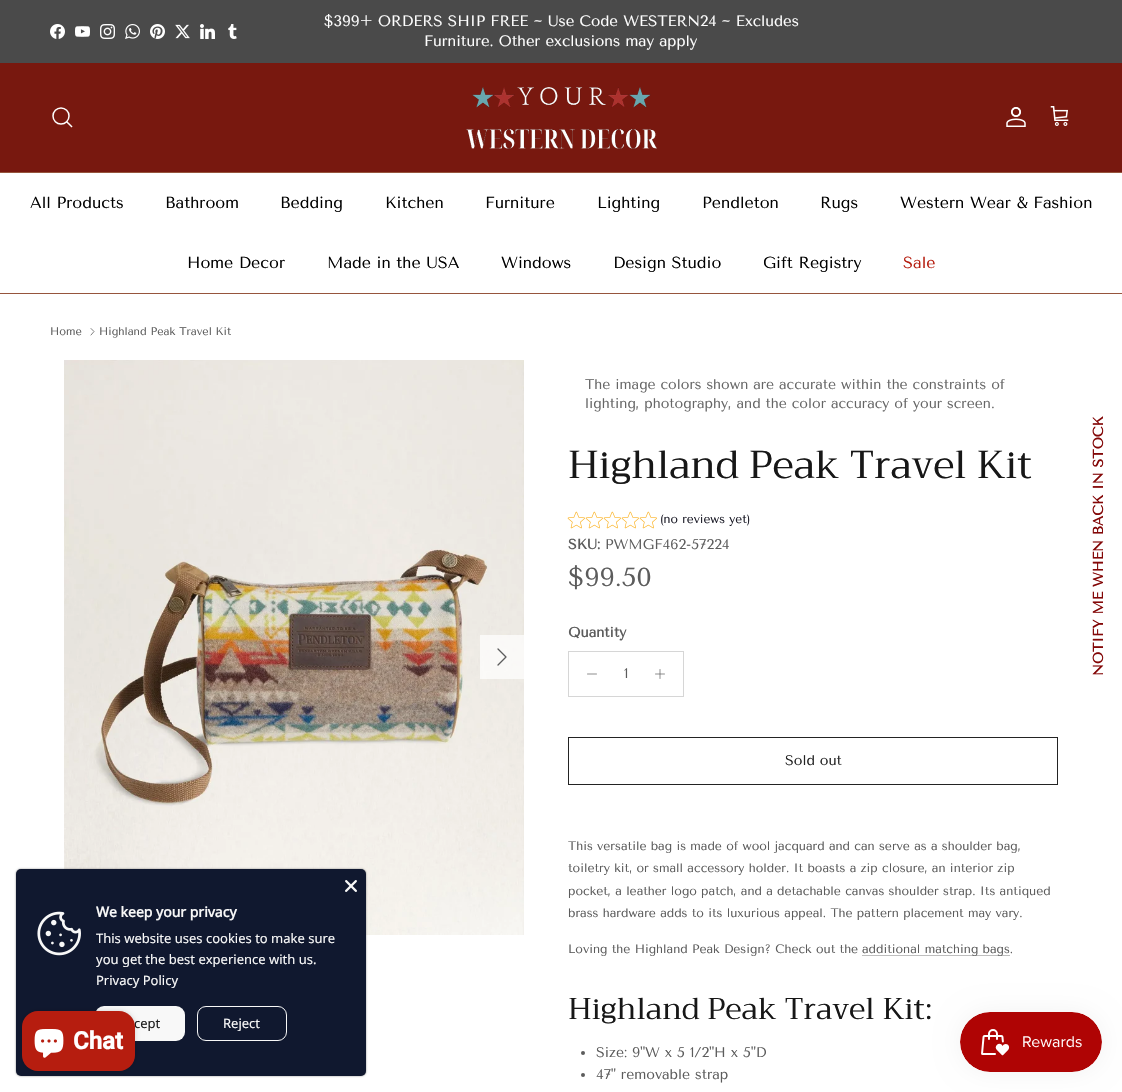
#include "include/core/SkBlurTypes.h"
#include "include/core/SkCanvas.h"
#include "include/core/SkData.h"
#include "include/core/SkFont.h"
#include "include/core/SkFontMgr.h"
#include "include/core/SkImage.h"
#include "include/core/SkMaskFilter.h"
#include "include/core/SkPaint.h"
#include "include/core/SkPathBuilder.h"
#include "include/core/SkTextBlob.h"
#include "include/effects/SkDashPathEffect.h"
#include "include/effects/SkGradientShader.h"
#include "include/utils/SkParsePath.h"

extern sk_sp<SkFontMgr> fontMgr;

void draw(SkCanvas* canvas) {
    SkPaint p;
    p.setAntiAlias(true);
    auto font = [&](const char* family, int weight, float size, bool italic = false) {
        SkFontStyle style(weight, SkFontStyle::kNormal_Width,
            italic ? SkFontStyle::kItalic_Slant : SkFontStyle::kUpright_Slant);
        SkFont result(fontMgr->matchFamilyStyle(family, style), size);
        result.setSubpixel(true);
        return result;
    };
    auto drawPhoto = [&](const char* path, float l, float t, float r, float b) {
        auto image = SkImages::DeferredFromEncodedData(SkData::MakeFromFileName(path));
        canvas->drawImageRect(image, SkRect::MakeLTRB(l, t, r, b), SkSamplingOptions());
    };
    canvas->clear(0xFFFFFFFF);
    p.setColor(0xFF4A4A4A);
    canvas->drawRect(SkRect::MakeLTRB(0, 0, 1122, 63), p);
    drawPhoto("media/1.png", 50, 24, 65, 39);
    drawPhoto("media/2.png", 75, 26, 90, 37);
    drawPhoto("media/3.png", 100, 24, 115, 39);
    drawPhoto("media/4.png", 125, 24, 140, 39);
    drawPhoto("media/5.png", 150, 24, 165, 39);
    drawPhoto("media/6.png", 175, 24, 190, 39);
    drawPhoto("media/7.png", 200, 24, 215, 39);
    drawPhoto("media/8.png", 228, 24, 237, 39);
    auto font1 = font("Tenor Sans", 400, 15);
    p.setColor(0xFFFFFFFF);
    canvas->drawString("$399+ ORDERS SHIP FREE ~ Use Code WESTERN24 ~ Excludes", 324, 26, font1, p);
    canvas->drawString("Furniture. Other exclusions may apply", 424, 46, font1, p);
    p.setColor(0xFF78180F);
    canvas->drawRect(SkRect::MakeLTRB(0, 63, 1122, 172), p);
    p.setColor(0xFF96553D);
    canvas->drawRect(SkRect::MakeLTRB(0, 172, 1122, 173), p);
    p.setStyle(SkPaint::kStroke_Style);
    p.setStrokeWidth(1.5f);
    p.setColor(0xFFFFFFFF);
    canvas->drawCircle(61, 116, 8, p);
    p.setStrokeCap(SkPaint::kSquare_Cap);
    canvas->drawPath(SkPathBuilder().moveTo(67, 122).lineTo(71.5f, 126.5f).detach(), p);
    drawPhoto("media/9.png", 466, 87, 657, 149);
    drawPhoto("media/10.png", 1006, 107, 1026, 127);
    drawPhoto("media/11.png", 1050, 106, 1069, 126);
    p.setStyle(SkPaint::kFill_Style);
    p.setColor(0xFF96553D);
    canvas->drawRect(SkRect::MakeLTRB(0, 293, 1122, 294), p);
    auto font2 = font("Tenor Sans", 400, 16);
    p.setColor(0xFF000000);
    {
        const struct { const char* s; float x, y; } items[] = {
            {"All Products", 30, 208},
            {"Bathroom", 165, 208},
            {"Bedding", 280, 208},
            {"Kitchen", 385, 208},
            {"Furniture", 485, 208},
            {"Lighting", 597, 208},
            {"Pendleton", 702, 208},
            {"Rugs", 820, 208},
            {"Western Wear & Fashion", 900, 208},
            {"Home Decor", 187, 268},
            {"Made in the USA", 327, 268},
            {"Windows", 501, 268},
            {"Design Studio", 613, 268},
            {"Gift Registry", 763, 268},
        };
        for (auto [s, x, y] : items) {
            canvas->drawString(s, x, y, font2, p);
        }
    }
    p.setColor(0xFFB61D0F);
    canvas->drawString("Sale", 903, 268, font2, p);
    auto font3 = font("Tenor Sans", 400, 11);
    p.setColor(0xFF5C5C5C);
    canvas->drawString("Home", 50, 335, font3, p);
    p.setStyle(SkPaint::kStroke_Style);
    p.setStrokeWidth(0.8f);
    p.setStrokeCap(SkPaint::kRound_Cap);
    p.setStrokeJoin(SkPaint::kRound_Join);
    canvas->drawPath(SkPathBuilder().moveTo(91, 335).lineTo(94, 331.5f).lineTo(91, 328.5f).detach(), p);
    p.setStyle(SkPaint::kFill_Style);
    canvas->drawString("Highland Peak Travel Kit", 99, 335, font3, p);
    drawPhoto("media/12.png", 64, 360, 524, 935);
    p.setColor(0xB3FFFFFF);
    canvas->drawRect(SkRect::MakeLTRB(480, 635, 524, 679), p);
    p.setStyle(SkPaint::kStroke_Style);
    p.setStrokeWidth(1.3f);
    p.setColor(0xFF5C5C5C);
    canvas->drawPath(SkPathBuilder().moveTo(498, 665).lineTo(506, 657).lineTo(498, 649).detach(), p);
    auto font4 = font("Tenor Sans", 400, 14);
    p.setStyle(SkPaint::kFill_Style);
    p.setColor(0xFF666666);
    canvas->drawString("The image colors shown are accurate within the constraints of", 585, 389, font4, p);
    canvas->drawString("lighting, photography, and the color accuracy of your screen.", 585, 408, font4, p);
    auto font5 = font("Trirong", 400, 39);
    p.setColor(0xFF171717);
    canvas->drawString("Highland Peak Travel Kit", 568, 478, font5, p);
    drawPhoto("media/13.png", 567, 511, 585, 529);
    drawPhoto("media/13.png", 585, 511, 603, 529);
    drawPhoto("media/13.png", 603, 511, 621, 529);
    drawPhoto("media/13.png", 621, 511, 639, 529);
    drawPhoto("media/13.png", 639, 511, 657, 529);
    auto font6 = font("Tenor Sans", 400, 12);
    p.setColor(0xFF1C1C28);
    canvas->drawString("(no reviews yet)", 660, 523, font6, p);
    auto font7 = font("Tenor Sans", 700, 14);
    p.setColor(0xFF5C5C5C);
    canvas->drawString("SKU:", 568, 549, font7, p);
    canvas->drawString("PWMGF462-57224", 605, 549, font4, p);
    auto font8 = font("Tenor Sans", 400, 26);
    canvas->drawString("$99.50", 568, 586, font8, p);
    canvas->drawString("Quantity", 568, 637, font7, p);
    p.setStyle(SkPaint::kStroke_Style);
    p.setStrokeWidth(1);
    p.setStrokeCap(SkPaint::kButt_Cap);
    p.setStrokeJoin(SkPaint::kMiter_Join);
    p.setColor(0xFFD6D6D6);
    canvas->drawRect(SkRect::MakeLTRB(568.5f, 651.5f, 683.5f, 696.5f), p);
    p.setStrokeWidth(0.7f);
    p.setStrokeCap(SkPaint::kRound_Cap);
    p.setStrokeJoin(SkPaint::kRound_Join);
    p.setColor(0xFF5C5C5C);
    canvas->drawPath(SkPathBuilder().moveTo(587.5f, 674).lineTo(596.5f, 674).detach(), p);
    p.setStyle(SkPaint::kFill_Style);
    canvas->drawString("1", 624, 678, font4, p);
    p.setStyle(SkPaint::kStroke_Style);
    canvas->drawPath(SkPathBuilder().moveTo(660, 669.5f).lineTo(660, 678.5f).moveTo(655.5f, 674).lineTo(664.5f, 674).detach(), p);
    p.setStrokeWidth(1);
    p.setStrokeCap(SkPaint::kButt_Cap);
    p.setStrokeJoin(SkPaint::kMiter_Join);
    p.setColor(0xFF232323);
    canvas->drawRect(SkRect::MakeLTRB(568.5f, 737.5f, 1057.5f, 784.5f), p);
    p.setStyle(SkPaint::kFill_Style);
    canvas->drawString("Sold out", 785, 765, font4, p);
    auto font9 = font("Tenor Sans", 400, 12.25f);
    p.setColor(0xFF5C5C5C);
    {
        const struct { const char* s; float x, y; } items[] = {
            {"This versatile bag is made of wool jacquard and can serve as a shoulder bag,", 568, 850},
            {"toiletry kit, or small accessory holder. It boasts a zip closure, an interior zip", 568, 872},
            {"pocket, a leather logo patch, and a detachable canvas shoulder strap. Its antiqued", 568, 895},
            {"brass hardware adds to its luxurious appeal. The pattern placement may vary.", 568, 917},
            {"Loving the Highland Peak Design? Check out the", 568, 953},
        };
        for (auto [s, x, y] : items) {
            canvas->drawString(s, x, y, font9, p);
        }
    }
    p.setColor(0xFFBEBEBE);
    canvas->drawRect(SkRect::MakeLTRB(862, 955, 1010, 956), p);
    p.setColor(0xFF5C5C5C);
    canvas->drawString("additional matching bags.", 862, 953, font9, p);
    auto font10 = font("Trirong", 400, 30);
    p.setColor(0xFF171717);
    canvas->drawString("Highland Peak Travel Kit:", 568, 1019, font10, p);
    p.setColor(0xFF5C5C5C);
    canvas->drawCircle(583, 1053, 2, p);
    canvas->drawString("Size: 9\"W x 5 1/2\"H x 5\"D", 596, 1057, font4, p);
    canvas->drawCircle(583, 1075, 2, p);
    canvas->drawString("47\" removable strap", 596, 1079, font4, p);
    p.setColor(0xFF830707);
    canvas->save();
    canvas->rotate(-90, 1103, 676);
    canvas->drawString("NOTIFY ME WHEN BACK IN STOCK", 1103, 676, font7, p);
    canvas->restore();
    p.setColor(0x80000000);
    p.setMaskFilter(SkMaskFilter::MakeBlur(kNormal_SkBlurStyle, 1));
    canvas->drawRoundRect(SkRect::MakeLTRB(16, 869, 366, 1076), 5, 5, p);
    p.setMaskFilter(nullptr);
    p.setColor(0xFF10182F);
    canvas->drawRoundRect(SkRect::MakeLTRB(16, 869, 366, 1076), 5, 5, p);
    drawPhoto("media/14.png", 345, 880, 357, 892);
    drawPhoto("media/15.png", 37, 911, 81, 956);
    auto font11 = font("Noto Sans", 700, 14);
    p.setColor(0xFFF8F8F8);
    canvas->drawString("We keep your privacy", 96, 917, font11, p);
    auto font12 = font("Noto Sans", 400, 13);
    {
        const struct { const char* s; float x, y; } items[] = {
            {"This website uses cookies to make sure", 96, 943},
            {"you get the best experience with us.", 96, 964},
            {"Privacy Policy", 96, 985},
        };
        for (auto [s, x, y] : items) {
            canvas->drawString(s, x, y, font12, p);
        }
    }
    canvas->drawRoundRect(SkRect::MakeLTRB(95, 1006, 185, 1041), 9, 9, p);
    p.setColor(0xFF1D1D1D);
    canvas->drawString("cept", 134, 1028, font12, p);
    p.setStyle(SkPaint::kStroke_Style);
    p.setColor(0xFFF8F8F8);
    canvas->drawRoundRect(SkRect::MakeLTRB(197.5f, 1006.5f, 286.5f, 1040.5f), 8.5f, 8.5f, p);
    p.setStyle(SkPaint::kFill_Style);
    canvas->drawString("Reject", 223, 1028, font12, p);
    p.setColor(0x0D000000);
    p.setMaskFilter(SkMaskFilter::MakeBlur(kNormal_SkBlurStyle, 12.5f));
    canvas->drawRoundRect(SkRect::MakeLTRB(960, 1012, 1102, 1072), 30, 30, p);
    p.setMaskFilter(nullptr);
    drawPhoto("media/16.png", 960, 1012, 1102, 1072);
    p.setColor(0x26000000);
    p.setMaskFilter(SkMaskFilter::MakeBlur(kNormal_SkBlurStyle, 2.5f));
    canvas->drawRoundRect(SkRect::MakeLTRB(22, 1011, 135, 1071), 16, 16, p);
    p.setMaskFilter(nullptr);
    p.setColor(0xFFB61D0F);
    canvas->drawRoundRect(SkRect::MakeLTRB(22, 1011, 135, 1071), 16, 16, p);
    drawPhoto("media/17.png", 34, 1029, 64, 1058);
    auto font13 = font("Roboto", 700, 24);
    p.setColor(0xFFFFFFFF);
    canvas->drawString("Chat", 73, 1049, font13, p);
}
